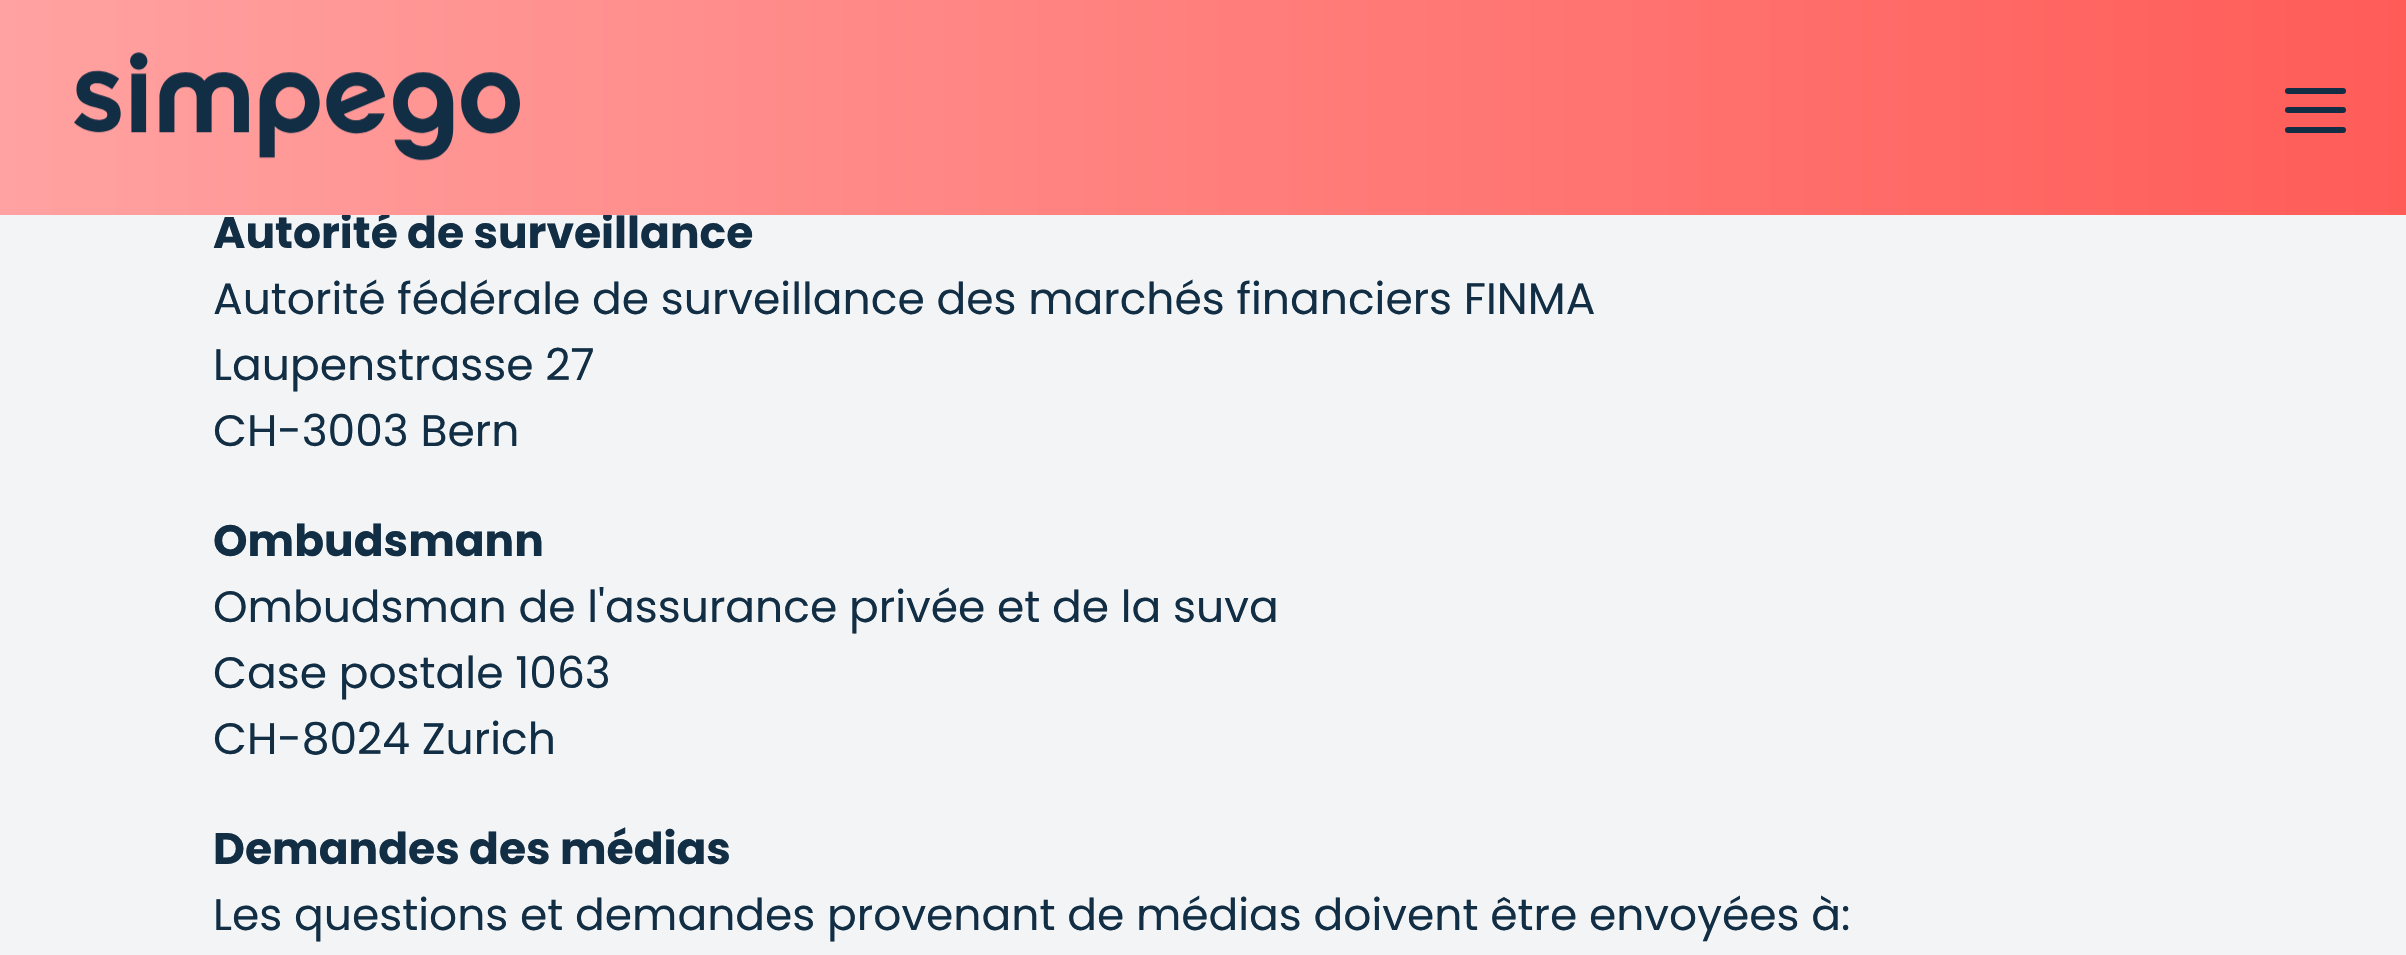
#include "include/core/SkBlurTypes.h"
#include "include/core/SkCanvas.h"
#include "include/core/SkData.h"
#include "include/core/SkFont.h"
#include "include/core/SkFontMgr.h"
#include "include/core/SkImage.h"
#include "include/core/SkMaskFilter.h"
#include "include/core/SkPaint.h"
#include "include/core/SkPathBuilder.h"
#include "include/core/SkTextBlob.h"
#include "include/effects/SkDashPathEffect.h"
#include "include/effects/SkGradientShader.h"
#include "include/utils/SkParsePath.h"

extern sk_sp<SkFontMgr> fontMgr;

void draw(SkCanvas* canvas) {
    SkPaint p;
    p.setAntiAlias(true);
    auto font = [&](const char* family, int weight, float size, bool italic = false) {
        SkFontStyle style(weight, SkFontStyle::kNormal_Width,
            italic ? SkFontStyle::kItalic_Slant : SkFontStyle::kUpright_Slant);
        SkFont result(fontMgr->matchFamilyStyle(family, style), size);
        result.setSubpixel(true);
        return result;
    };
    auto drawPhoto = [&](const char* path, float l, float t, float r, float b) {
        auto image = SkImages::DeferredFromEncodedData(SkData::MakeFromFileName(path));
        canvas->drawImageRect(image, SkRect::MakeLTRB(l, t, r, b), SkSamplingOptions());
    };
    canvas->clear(0xFFFFFFFF);
    p.setColor(0xFFF3F4F5);
    canvas->drawPath(SkPathBuilder().moveTo(0, -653).lineTo(0, 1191).lineTo(2406, 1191).lineTo(2406, -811).lineTo(2402, -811).close().detach(), p);
    auto font1 = font("Poppins", 700, 44);
    p.setColor(0xFF112E45);
    canvas->drawString("Autorité de surveillance", 213, 248, font1, p);
    {
        const SkColor colors[] = {0xFFFFA2A1, 0xFFFF5C58};
        const float stops[] = {0, 1};
        const SkPoint ends[] = {{0, 107}, {2406, 107}};
        p.setShader(SkGradientShader::MakeLinear(ends, colors, stops, 2, SkTileMode::kClamp));
        p.setAlpha(255);
    }
    canvas->drawRect(SkRect::MakeLTRB(0, 0, 2406, 215), p);
    drawPhoto("media/1.png", 74, 52, 520, 161);
    p.setShader(nullptr);
    p.setColor(0xFF112E45);
    canvas->drawRoundRect(SkRect::MakeLTRB(2285, 107, 2346, 113), 3, 3, p);
    canvas->drawRoundRect(SkRect::MakeLTRB(2285, 88, 2346, 94), 3, 3, p);
    canvas->drawRoundRect(SkRect::MakeLTRB(2285, 127, 2346, 133), 3, 3, p);
    auto font2 = font("Poppins", 400, 44);
    {
        const struct { const char* s; float x, y; } items[] = {
            {"Autorité fédérale de surveillance des marchés financiers FINMA", 213, 314},
            {"Laupenstrasse 27", 213, 380},
            {"CH-3003 Bern", 213, 446},
        };
        for (auto [s, x, y] : items) {
            canvas->drawString(s, x, y, font2, p);
        }
    }
    canvas->drawString("Ombudsmann", 213, 556, font1, p);
    {
        const struct { const char* s; float x, y; } items[] = {
            {"Ombudsman de l'assurance privée et de la suva", 213, 622},
            {"Case postale 1063", 213, 688},
            {"CH-8024 Zurich", 213, 754},
        };
        for (auto [s, x, y] : items) {
            canvas->drawString(s, x, y, font2, p);
        }
    }
    canvas->drawString("Demandes des médias", 213, 864, font1, p);
    canvas->drawString("Les questions et demandes provenant de médias doivent être envoyées à:", 213, 930, font2, p);
}
